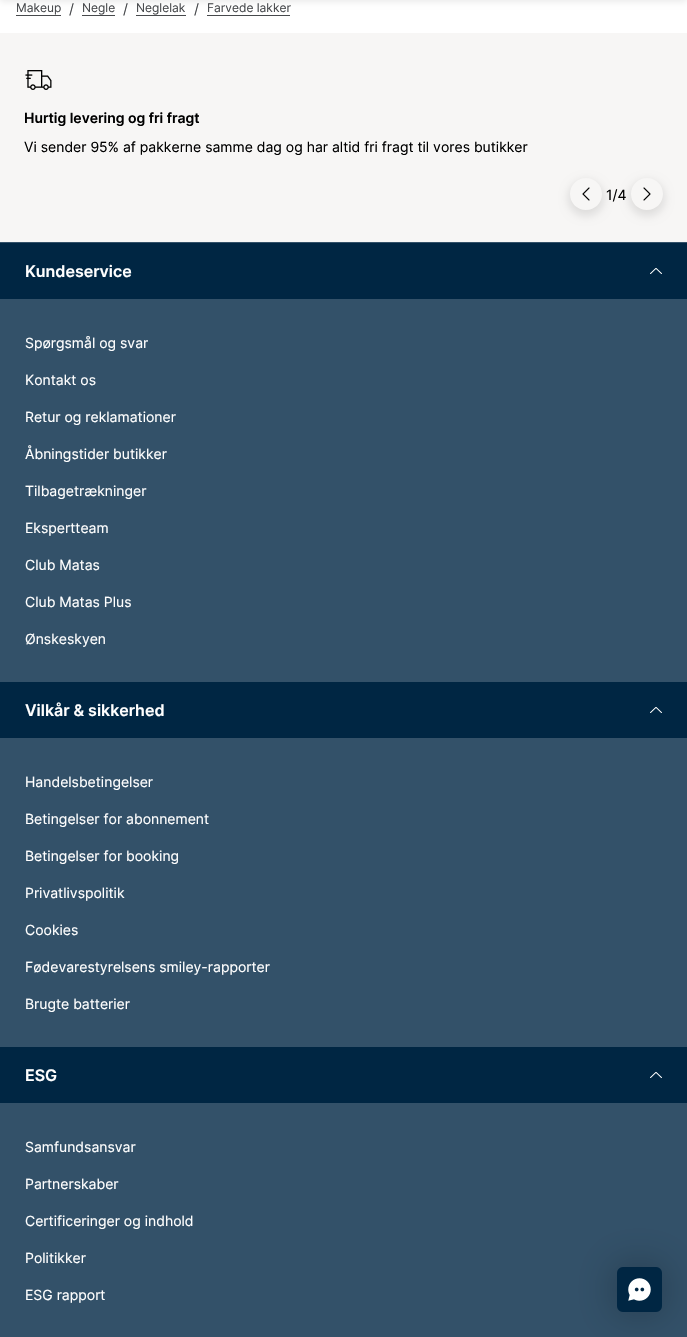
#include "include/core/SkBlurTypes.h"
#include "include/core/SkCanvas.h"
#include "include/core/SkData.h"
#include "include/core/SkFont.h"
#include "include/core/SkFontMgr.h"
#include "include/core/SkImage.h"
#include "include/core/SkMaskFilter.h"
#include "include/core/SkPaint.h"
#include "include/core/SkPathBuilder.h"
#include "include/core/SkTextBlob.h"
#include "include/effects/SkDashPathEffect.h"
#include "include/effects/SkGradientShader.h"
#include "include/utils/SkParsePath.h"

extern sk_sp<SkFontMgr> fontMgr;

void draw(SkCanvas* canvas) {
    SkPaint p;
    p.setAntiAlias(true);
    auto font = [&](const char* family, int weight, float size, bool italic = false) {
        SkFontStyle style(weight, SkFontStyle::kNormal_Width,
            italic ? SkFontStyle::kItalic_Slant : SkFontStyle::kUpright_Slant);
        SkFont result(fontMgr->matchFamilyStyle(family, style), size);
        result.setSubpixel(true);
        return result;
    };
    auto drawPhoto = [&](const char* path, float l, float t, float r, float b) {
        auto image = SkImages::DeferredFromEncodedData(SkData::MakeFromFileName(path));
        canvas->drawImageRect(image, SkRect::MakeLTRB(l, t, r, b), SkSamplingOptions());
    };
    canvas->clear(0xFFFFFFFF);
    p.setColor(0x14000000);
    p.setMaskFilter(SkMaskFilter::MakeBlur(kNormal_SkBlurStyle, 3));
    canvas->drawRect(SkRect::MakeLTRB(0, -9, 687, 2), p);
    p.setMaskFilter(nullptr);
    auto font1 = font("Inter", 400, 12);
    p.setColor(0xFF47494C);
    canvas->drawString("Makeup", 16, 12, font1, p);
    canvas->drawRect(SkRect::MakeLTRB(16, 15, 61, 16), p);
    auto font2 = font("Inter", 400, 14);
    canvas->drawString("/", 69, 14, font2, p);
    canvas->drawString("Negle", 82, 12, font1, p);
    canvas->drawRect(SkRect::MakeLTRB(82, 15, 115, 16), p);
    canvas->drawString("/", 123, 14, font2, p);
    canvas->drawString("Neglelak", 136, 12, font1, p);
    canvas->drawRect(SkRect::MakeLTRB(136, 15, 186, 16), p);
    canvas->drawString("/", 194, 14, font2, p);
    canvas->drawString("Farvede lakker", 207, 12, font1, p);
    canvas->drawRect(SkRect::MakeLTRB(207, 15, 290, 16), p);
    p.setColor(0xFFF7F6F5);
    canvas->drawRect(SkRect::MakeLTRB(0, 33, 687, 242), p);
    drawPhoto("media/1.png", 25, 70, 52, 90);
    auto font3 = font("Inter", 600, 14);
    p.setColor(0xFF000000);
    canvas->drawString("Hurtig levering og fri fragt", 24, 123, font3, p);
    canvas->drawString("Vi sender 95% af pakkerne samme dag og har altid fri fragt til vores butikker", 24, 152, font2, p);
    canvas->save();
    canvas->clipPath(SkPathBuilder(SkPathFillType::kEvenOdd).moveTo(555, 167).lineTo(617, 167).lineTo(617, 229).lineTo(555, 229).close().moveTo(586, 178).cubicTo(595, 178, 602, 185, 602, 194).cubicTo(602, 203, 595, 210, 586, 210).cubicTo(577, 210, 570, 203, 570, 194).cubicTo(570, 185, 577, 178, 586, 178).close().detach(), true);
    p.setColor(0x1A000000);
    p.setMaskFilter(SkMaskFilter::MakeBlur(kNormal_SkBlurStyle, 4));
    canvas->drawRoundRect(SkRect::MakeLTRB(568, 180, 604, 216), 18, 18, p);
    p.setMaskFilter(nullptr);
    canvas->restore();
    drawPhoto("media/2.png", 582, 187, 590, 201);
    canvas->save();
    canvas->clipPath(SkPathBuilder(SkPathFillType::kEvenOdd).moveTo(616, 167).lineTo(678, 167).lineTo(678, 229).lineTo(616, 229).close().moveTo(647, 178).cubicTo(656, 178, 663, 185, 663, 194).cubicTo(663, 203, 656, 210, 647, 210).cubicTo(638, 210, 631, 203, 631, 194).cubicTo(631, 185, 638, 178, 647, 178).close().detach(), true);
    p.setMaskFilter(SkMaskFilter::MakeBlur(kNormal_SkBlurStyle, 4));
    canvas->drawRoundRect(SkRect::MakeLTRB(629, 180, 665, 216), 18, 18, p);
    p.setMaskFilter(nullptr);
    canvas->restore();
    drawPhoto("media/3.png", 643, 187, 651, 201);
    p.setColor(0xFF000000);
    canvas->drawString("1/4", 606, 200, font2, p);
    {
        const struct { float l, t, r, b; SkColor color; } items[] = {
            {0, 243, 687, 1103, 0xFF002643},
            {0, 242, 687, 243, 0xFF335169},
            {0, 299, 687, 682, 0xFF335169},
        };
        for (auto [l, t, r, b, color] : items) {
            p.setColor(color);
            canvas->drawRect(SkRect::MakeLTRB(l, t, r, b), p);
        }
    }
    auto font4 = font("Inter", 600, 16);
    p.setColor(0xFFFFFFFF);
    canvas->drawString("Kundeservice", 25, 277, font4, p);
    drawPhoto("media/4.png", 650, 268, 662, 274);
    {
        const struct { const char* s; float x, y; } items[] = {
            {"Spørgsmål og svar", 25, 348},
            {"Kontakt os", 25, 385},
            {"Retur og reklamationer", 25, 422},
            {"Åbningstider butikker", 25, 459},
            {"Tilbagetrækninger", 25, 496},
            {"Ekspertteam", 25, 533},
            {"Club Matas", 25, 570},
            {"Club Matas Plus", 25, 607},
            {"Ønskeskyen", 25, 644},
        };
        for (auto [s, x, y] : items) {
            canvas->drawString(s, x, y, font2, p);
        }
    }
    p.setColor(0xFF335169);
    canvas->drawRect(SkRect::MakeLTRB(0, 738, 687, 1047), p);
    p.setColor(0xFFFFFFFF);
    canvas->drawString("Vilkår & sikkerhed", 25, 716, font4, p);
    drawPhoto("media/4.png", 650, 707, 662, 713);
    {
        const struct { const char* s; float x, y; } items[] = {
            {"Handelsbetingelser", 25, 787},
            {"Betingelser for abonnement", 25, 824},
            {"Betingelser for booking", 25, 861},
            {"Privatlivspolitik", 25, 898},
            {"Cookies", 25, 935},
            {"Fødevarestyrelsens smiley-rapporter", 25, 972},
            {"Brugte batterier", 25, 1009},
        };
        for (auto [s, x, y] : items) {
            canvas->drawString(s, x, y, font2, p);
        }
    }
    p.setColor(0xFF335169);
    canvas->drawRect(SkRect::MakeLTRB(0, 1103, 687, 1337), p);
    p.setColor(0xFFFFFFFF);
    canvas->drawString("ESG", 25, 1081, font4, p);
    drawPhoto("media/4.png", 650, 1072, 662, 1078);
    {
        const struct { const char* s; float x, y; } items[] = {
            {"Samfundsansvar", 25, 1152},
            {"Partnerskaber", 25, 1189},
            {"Certificeringer og indhold", 25, 1226},
            {"Politikker", 25, 1263},
            {"ESG rapport", 25, 1300},
        };
        for (auto [s, x, y] : items) {
            canvas->drawString(s, x, y, font2, p);
        }
    }
    p.setColor(0x4D000000);
    p.setMaskFilter(SkMaskFilter::MakeBlur(kNormal_SkBlurStyle, 20));
    canvas->drawRoundRect(SkRect::MakeLTRB(617, 1267, 662, 1312), 8, 8, p);
    p.setMaskFilter(nullptr);
    drawPhoto("media/5.png", 617, 1267, 662, 1312);
}
